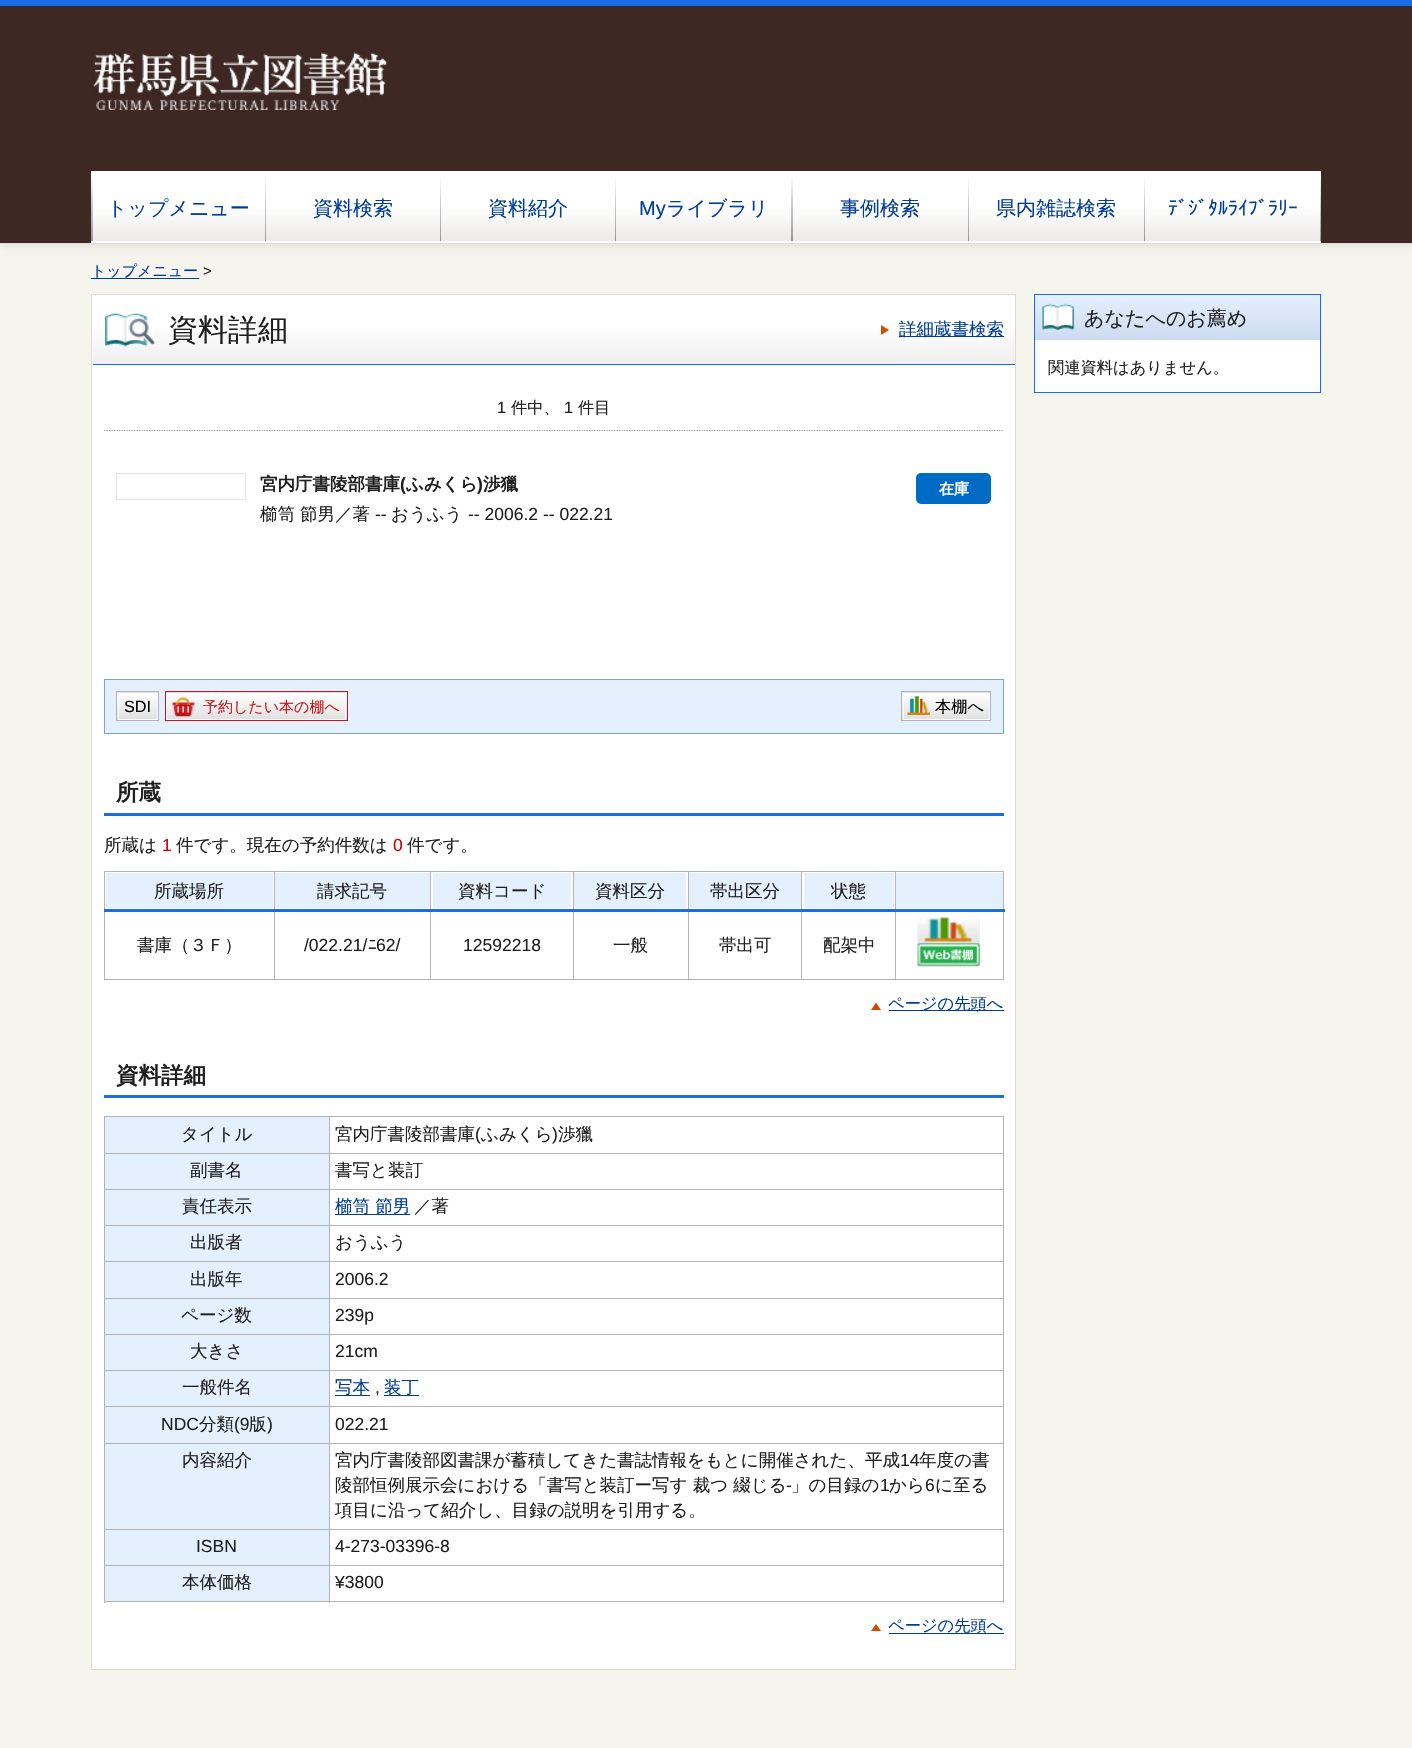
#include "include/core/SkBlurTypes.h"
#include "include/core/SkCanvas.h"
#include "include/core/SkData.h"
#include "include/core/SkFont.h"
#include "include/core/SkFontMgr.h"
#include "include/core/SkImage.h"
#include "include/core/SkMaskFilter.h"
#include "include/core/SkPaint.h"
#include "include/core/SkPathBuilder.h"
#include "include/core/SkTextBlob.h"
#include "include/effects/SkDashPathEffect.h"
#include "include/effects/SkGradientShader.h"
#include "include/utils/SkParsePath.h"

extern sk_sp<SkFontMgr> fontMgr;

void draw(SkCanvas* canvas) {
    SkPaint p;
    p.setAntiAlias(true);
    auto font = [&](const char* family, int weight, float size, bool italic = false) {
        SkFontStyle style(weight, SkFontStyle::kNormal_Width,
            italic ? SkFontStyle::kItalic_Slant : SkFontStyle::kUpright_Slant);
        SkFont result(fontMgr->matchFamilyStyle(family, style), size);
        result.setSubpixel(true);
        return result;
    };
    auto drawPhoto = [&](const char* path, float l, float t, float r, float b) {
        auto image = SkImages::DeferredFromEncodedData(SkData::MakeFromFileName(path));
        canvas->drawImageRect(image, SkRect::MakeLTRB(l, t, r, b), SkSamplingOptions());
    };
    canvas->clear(0xFFF5F4ED);
    p.setColor(0x21000000);
    p.setMaskFilter(SkMaskFilter::MakeBlur(kNormal_SkBlurStyle, 4.5f));
    canvas->drawRect(SkRect::MakeLTRB(0, 0, 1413, 244), p);
    p.setMaskFilter(nullptr);
    {
        const struct { float l, t, r, b; SkColor color; } items[] = {
            {0, 6, 1412, 243, 0xFF3D2823},
            {0, 0, 1412, 6, 0xFF1A6DE6},
            {0, 243, 1412, 244, 0xFFDEDDD8},
        };
        for (auto [l, t, r, b, color] : items) {
            p.setColor(color);
            canvas->drawRect(SkRect::MakeLTRB(l, t, r, b), p);
        }
    }
    drawPhoto("media/1.png", 93, 52, 387, 110);
    p.setColor(0xFFFFFFFF);
    canvas->drawRect(SkRect::MakeLTRB(91, 241, 1321, 243), p);
    {
        const SkColor colors[] = {0xFF999999, 0xFFCFCFCF, 0xFFFFFFFF, 0xFFFFFFFF};
        const float stops[] = {0, 0.55f, 0.95f, 1};
        const SkPoint ends[] = {{706, 241}, {706, 171}};
        p.setShader(SkGradientShader::MakeLinear(ends, colors, stops, 4, SkTileMode::kClamp));
        p.setAlpha(255);
    }
    canvas->drawRect(SkRect::MakeLTRB(91, 171, 1321, 241), p);
    {
        const SkColor colors[] = {0xFFEBEAE9, 0xFFFFFFFF, 0xFFFFFFFF};
        const float stops[] = {0, 0.5f, 1};
        const SkPoint ends[] = {{179, 241}, {179, 171}};
        p.setShader(SkGradientShader::MakeLinear(ends, colors, stops, 3, SkTileMode::kClamp));
        p.setAlpha(255);
    }
    canvas->drawRect(SkRect::MakeLTRB(93, 176, 265, 241), p);
    auto font1 = font("WenQuanYi Zen Hei", 500, 20);
    p.setShader(nullptr);
    p.setColor(0xFF003D99);
    canvas->drawString("トップメニュー", 107, 215, font1, p);
    {
        const SkColor colors[] = {0xFFEBEAE9, 0xFFFFFFFF, 0xFFFFFFFF};
        const float stops[] = {0, 0.5f, 1};
        const SkPoint ends[] = {{353, 241}, {353, 171}};
        p.setShader(SkGradientShader::MakeLinear(ends, colors, stops, 3, SkTileMode::kClamp));
        p.setAlpha(255);
    }
    canvas->drawRect(SkRect::MakeLTRB(266, 176, 440, 241), p);
    p.setShader(nullptr);
    p.setColor(0xFF003D99);
    canvas->drawString("資料検索", 313, 215, font1, p);
    {
        const SkColor colors[] = {0xFFEBEAE9, 0xFFFFFFFF, 0xFFFFFFFF};
        const float stops[] = {0, 0.5f, 1};
        const SkPoint ends[] = {{528, 241}, {528, 171}};
        p.setShader(SkGradientShader::MakeLinear(ends, colors, stops, 3, SkTileMode::kClamp));
        p.setAlpha(255);
    }
    canvas->drawRect(SkRect::MakeLTRB(441, 176, 615, 241), p);
    p.setShader(nullptr);
    p.setColor(0xFF003D99);
    canvas->drawString("資料紹介", 488, 215, font1, p);
    {
        const SkColor colors[] = {0xFFEBEAE9, 0xFFFFFFFF, 0xFFFFFFFF};
        const float stops[] = {0, 0.5f, 1};
        const SkPoint ends[] = {{704, 241}, {704, 171}};
        p.setShader(SkGradientShader::MakeLinear(ends, colors, stops, 3, SkTileMode::kClamp));
        p.setAlpha(255);
    }
    canvas->drawRect(SkRect::MakeLTRB(616, 176, 791, 241), p);
    auto font2 = font("Liberation Sans", 400, 20);
    p.setShader(nullptr);
    p.setColor(0xFF003D99);
    canvas->drawString("My", 639, 215, font2, p);
    canvas->drawString("ライブラリ", 666, 215, font1, p);
    {
        const SkColor colors[] = {0xFFEBEAE9, 0xFFFFFFFF, 0xFFFFFFFF};
        const float stops[] = {0, 0.5f, 1};
        const SkPoint ends[] = {{880, 241}, {880, 171}};
        p.setShader(SkGradientShader::MakeLinear(ends, colors, stops, 3, SkTileMode::kClamp));
        p.setAlpha(255);
    }
    canvas->drawRect(SkRect::MakeLTRB(793, 176, 968, 241), p);
    p.setShader(nullptr);
    p.setColor(0xFF003D99);
    canvas->drawString("事例検索", 840, 215, font1, p);
    {
        const SkColor colors[] = {0xFFEBEAE9, 0xFFFFFFFF, 0xFFFFFFFF};
        const float stops[] = {0, 0.5f, 1};
        const SkPoint ends[] = {{1056, 241}, {1056, 171}};
        p.setShader(SkGradientShader::MakeLinear(ends, colors, stops, 3, SkTileMode::kClamp));
        p.setAlpha(255);
    }
    canvas->drawRect(SkRect::MakeLTRB(969, 176, 1144, 241), p);
    p.setShader(nullptr);
    p.setColor(0xFF003D99);
    canvas->drawString("県内雑誌検索", 996, 215, font1, p);
    {
        const SkColor colors[] = {0xFFEBEAE9, 0xFFFFFFFF, 0xFFFFFFFF};
        const float stops[] = {0, 0.5f, 1};
        const SkPoint ends[] = {{1233, 241}, {1233, 171}};
        p.setShader(SkGradientShader::MakeLinear(ends, colors, stops, 3, SkTileMode::kClamp));
        p.setAlpha(255);
    }
    canvas->drawRect(SkRect::MakeLTRB(1145, 176, 1320, 241), p);
    auto font3 = font("IPAPGothic", 400, 20);
    p.setShader(nullptr);
    p.setColor(0xFF003D99);
    canvas->drawString("ﾃﾞｼﾞﾀﾙﾗｲﾌﾞﾗﾘｰ", 1168, 215, font3, p);
    auto font4 = font("WenQuanYi Zen Hei", 500, 15);
    canvas->drawString("トップメニュー", 91, 276, font4, p);
    canvas->drawRect(SkRect::MakeLTRB(91, 278, 199, 279), p);
    auto font5 = font("Liberation Sans", 400, 15);
    p.setColor(0xFF1F1F1F);
    canvas->drawString(">", 203, 276, font5, p);
    p.setColor(0xFFFFFFFF);
    canvas->drawRect(SkRect::MakeLTRB(91.5f, 294.5f, 1015.5f, 1669.5f), p);
    p.setStyle(SkPaint::kStroke_Style);
    p.setStrokeWidth(1);
    p.setColor(0xFFDBDACB);
    canvas->drawRect(SkRect::MakeLTRB(91.5f, 294.5f, 1015.5f, 1669.5f), p);
    p.setStyle(SkPaint::kFill_Style);
    {
        const SkColor colors[] = {0xFFEBEBEB, 0xFFEFEFEF, 0xFFFFFFFF, 0xFFFFFFFF};
        const float stops[] = {0, 0, 0.62f, 1};
        const SkPoint ends[] = {{554, 364}, {554, 295}};
        p.setShader(SkGradientShader::MakeLinear(ends, colors, stops, 4, SkTileMode::kClamp));
        p.setAlpha(255);
    }
    canvas->drawRect(SkRect::MakeLTRB(93, 328, 1015, 364), p);
    p.setShader(nullptr);
    p.setColor(0xFF1A6DE6);
    canvas->drawRect(SkRect::MakeLTRB(93, 364, 1015, 365), p);
    drawPhoto("media/2.png", 105, 313, 155, 347);
    auto font6 = font("WenQuanYi Zen Hei", 500, 30);
    p.setColor(0xFF1F1F1F);
    canvas->drawString("資料詳細", 168, 340, font6, p);
    p.setColor(0xFFCC4E00);
    canvas->drawPath(SkPathBuilder().moveTo(881, 335).lineTo(881, 325).lineTo(889, 330).close().detach(), p);
    p.setColor(0xFF003D99);
    canvas->drawRect(SkRect::MakeLTRB(899, 336, 1004, 337), p);
    auto font7 = font("WenQuanYi Zen Hei", 500, 17.5f);
    canvas->drawString("詳細蔵書検索", 899, 335, font7, p);
    p.setStyle(SkPaint::kStroke_Style);
    p.setStrokeWidth(1.2f);
    p.setColor(0xFF9B9B9B);
    p.setPathEffect(SkDashPathEffect::Make({{1.25f, 1.25f}}, 0));
    canvas->drawPath(SkPathBuilder().moveTo(104, 430.5f).lineTo(1004, 430.5f).detach(), p);
    p.setPathEffect(nullptr);
    auto font8 = font("Liberation Sans", 400, 16.25f);
    p.setStyle(SkPaint::kFill_Style);
    p.setColor(0xFF1F1F1F);
    canvas->drawString("1", 497, 413, font8, p);
    auto font9 = font("WenQuanYi Zen Hei", 500, 16.25f);
    canvas->drawString("件中、", 511, 413, font9, p);
    canvas->drawString("1", 564, 413, font8, p);
    canvas->drawString("件目", 578, 413, font9, p);
    p.setStyle(SkPaint::kStroke_Style);
    p.setStrokeWidth(1);
    p.setColor(0xFFE5E5E5);
    canvas->drawRect(SkRect::MakeLTRB(116.5f, 473.5f, 245.5f, 499.5f), p);
    auto font10 = font("WenQuanYi Zen Hei", 700, 17.5f);
    p.setStyle(SkPaint::kFill_Style);
    p.setColor(0xFF1F1F1F);
    canvas->drawString("宮内庁書陵部書庫", 260, 490, font10, p);
    auto font11 = font("Liberation Sans", 700, 17.5f);
    canvas->drawString("(", 400, 490, font11, p);
    canvas->drawString("ふみくら", 406, 490, font10, p);
    canvas->drawString(")", 477, 490, font11, p);
    canvas->drawString("渉獵", 483, 490, font10, p);
    p.setColor(0xFF006BC5);
    canvas->drawRoundRect(SkRect::MakeLTRB(917.5f, 474.5f, 989.5f, 502.5f), 3.5f, 3.5f, p);
    p.setStyle(SkPaint::kStroke_Style);
    p.setStrokeWidth(3);
    canvas->drawRoundRect(SkRect::MakeLTRB(917.5f, 474.5f, 989.5f, 502.5f), 3.5f, 3.5f, p);
    auto font12 = font("WenQuanYi Zen Hei", 700, 15);
    p.setStyle(SkPaint::kFill_Style);
    p.setColor(0xFFFFFFFF);
    canvas->drawString("在庫", 939, 494, font12, p);
    p.setColor(0xFF1F1F1F);
    canvas->drawString("櫛笥", 260, 520, font7, p);
    canvas->drawString("節男／著", 300, 520, font7, p);
    auto font13 = font("Liberation Sans", 400, 17.5f);
    canvas->drawString("--", 375, 520, font13, p);
    canvas->drawString("おうふう", 391, 520, font7, p);
    canvas->drawString("-- 2006.2 -- 022.21", 468, 520, font13, p);
    p.setColor(0xFFE5F0FF);
    canvas->drawRect(SkRect::MakeLTRB(104.5f, 679.5f, 1003.5f, 733.5f), p);
    p.setStyle(SkPaint::kStroke_Style);
    p.setStrokeWidth(1);
    p.setColor(0xFF73A1E5);
    canvas->drawRect(SkRect::MakeLTRB(104.5f, 679.5f, 1003.5f, 733.5f), p);
    p.setStyle(SkPaint::kFill_Style);
    {
        const SkColor colors[] = {0xFFE0E0E0, 0xFFFFFFFF};
        const float stops[] = {0, 1};
        const SkPoint ends[] = {{138, 693}, {138, 665}};
        p.setShader(SkGradientShader::MakeLinear(ends, colors, stops, 2, SkTileMode::kClamp));
        p.setAlpha(255);
    }
    canvas->drawRect(SkRect::MakeLTRB(116, 692, 159, 693), p);
    {
        const SkColor colors[] = {0xFFE0E0E0, 0xFFFFFFFF};
        const float stops[] = {0, 1};
        const SkPoint ends[] = {{138, 720}, {138, 693}};
        p.setShader(SkGradientShader::MakeLinear(ends, colors, stops, 2, SkTileMode::kClamp));
        p.setAlpha(255);
    }
    canvas->drawRect(SkRect::MakeLTRB(117, 693, 157, 720), p);
    p.setStyle(SkPaint::kStroke_Style);
    p.setShader(nullptr);
    p.setColor(0xFFFBFBFB);
    canvas->drawRect(SkRect::MakeLTRB(118.5f, 693.5f, 157.5f, 719.5f), p);
    p.setColor(0xFFB3B3B3);
    canvas->drawRect(SkRect::MakeLTRB(116.5f, 691.5f, 158.5f, 720.5f), p);
    p.setStyle(SkPaint::kFill_Style);
    p.setColor(0xFF000000);
    canvas->drawString("SDI", 124, 712, font8, p);
    {
        const SkColor colors[] = {0xFFE0E0E0, 0xFFFFFFFF};
        const float stops[] = {0, 1};
        const SkPoint ends[] = {{256, 693}, {256, 665}};
        p.setShader(SkGradientShader::MakeLinear(ends, colors, stops, 2, SkTileMode::kClamp));
        p.setAlpha(255);
    }
    canvas->drawRect(SkRect::MakeLTRB(165, 692, 348, 693), p);
    {
        const SkColor colors[] = {0xFFE0E0E0, 0xFFFFFFFF};
        const float stops[] = {0, 1};
        const SkPoint ends[] = {{256, 720}, {256, 693}};
        p.setShader(SkGradientShader::MakeLinear(ends, colors, stops, 2, SkTileMode::kClamp));
        p.setAlpha(255);
    }
    canvas->drawRect(SkRect::MakeLTRB(167, 693, 347, 720), p);
    p.setStyle(SkPaint::kStroke_Style);
    p.setShader(nullptr);
    p.setColor(0xFFFBFBFB);
    canvas->drawRect(SkRect::MakeLTRB(166.5f, 693.5f, 345.5f, 719.5f), p);
    p.setColor(0xFFC5181C);
    canvas->drawRect(SkRect::MakeLTRB(165.5f, 691.5f, 347.5f, 720.5f), p);
    drawPhoto("media/3.png", 172, 696, 195, 717);
    p.setStyle(SkPaint::kFill_Style);
    canvas->drawString("予約したい本の棚へ", 203, 712, font4, p);
    {
        const SkColor colors[] = {0xFFE0E0E0, 0xFFFFFFFF};
        const float stops[] = {0, 1};
        const SkPoint ends[] = {{946, 693}, {946, 665}};
        p.setShader(SkGradientShader::MakeLinear(ends, colors, stops, 2, SkTileMode::kClamp));
        p.setAlpha(255);
    }
    canvas->drawRect(SkRect::MakeLTRB(901, 692, 991, 693), p);
    {
        const SkColor colors[] = {0xFFE0E0E0, 0xFFFFFFFF};
        const float stops[] = {0, 1};
        const SkPoint ends[] = {{946, 720}, {946, 693}};
        p.setShader(SkGradientShader::MakeLinear(ends, colors, stops, 2, SkTileMode::kClamp));
        p.setAlpha(255);
    }
    canvas->drawRect(SkRect::MakeLTRB(902, 693, 989, 720), p);
    p.setStyle(SkPaint::kStroke_Style);
    p.setShader(nullptr);
    p.setColor(0xFFFBFBFB);
    canvas->drawRect(SkRect::MakeLTRB(903.5f, 693.5f, 989.5f, 719.5f), p);
    p.setColor(0xFFB3B3B3);
    canvas->drawRect(SkRect::MakeLTRB(901.5f, 691.5f, 990.5f, 720.5f), p);
    drawPhoto("media/4.png", 907, 696, 930, 715);
    p.setStyle(SkPaint::kFill_Style);
    p.setColor(0xFF000000);
    canvas->drawString("本棚へ", 935, 712, font9, p);
    p.setColor(0xFF1A6DE6);
    canvas->drawRect(SkRect::MakeLTRB(104, 813, 1004, 816), p);
    auto font14 = font("WenQuanYi Zen Hei", 700, 22.5f);
    p.setColor(0xFF1F1F1F);
    canvas->drawString("所蔵", 116, 800, font14, p);
    canvas->drawString("所蔵は", 104, 851, font7, p);
    p.setColor(0xFFCC0100);
    canvas->drawString("1", 162, 851, font13, p);
    p.setColor(0xFF1F1F1F);
    canvas->drawString("件です。現在の予約件数は", 176, 851, font7, p);
    p.setColor(0xFFCC0100);
    canvas->drawString("0", 393, 851, font13, p);
    p.setColor(0xFF1F1F1F);
    canvas->drawString("件です。", 407, 851, font7, p);
    {
        const struct { float l, t, r, b; SkColor color; } items[] = {
            {104, 871, 1004, 872, 0xFFB3B3B3},
            {1003, 871, 1004, 980, 0xFFB3B3B3},
            {104, 979, 1004, 980, 0xFFB3B3B3},
            {104, 871, 105, 980, 0xFFB3B3B3},
            {896, 873, 1003, 908, 0xFFE5F0FF},
            {274, 871, 275, 980, 0xFFB3B3B3},
            {430, 871, 431, 980, 0xFFB3B3B3},
            {573, 871, 574, 980, 0xFFB3B3B3},
            {688, 871, 689, 980, 0xFFB3B3B3},
            {801, 871, 802, 980, 0xFFB3B3B3},
            {895, 871, 896, 980, 0xFFB3B3B3},
            {104, 909, 1005, 912, 0xFF1A6DE6},
            {106, 873, 273, 908, 0xFFE5F0FF},
        };
        for (auto [l, t, r, b, color] : items) {
            p.setColor(color);
            canvas->drawRect(SkRect::MakeLTRB(l, t, r, b), p);
        }
    }
    p.setColor(0xFF1F1F1F);
    canvas->drawString("所蔵場所", 154, 897, font7, p);
    p.setColor(0xFFE5F0FF);
    canvas->drawRect(SkRect::MakeLTRB(275, 873, 430, 908), p);
    p.setColor(0xFF1F1F1F);
    canvas->drawString("請求記号", 317, 897, font7, p);
    p.setColor(0xFFE5F0FF);
    canvas->drawRect(SkRect::MakeLTRB(433, 873, 571, 908), p);
    p.setColor(0xFF1F1F1F);
    canvas->drawString("資料コード", 458, 897, font7, p);
    p.setColor(0xFFE5F0FF);
    canvas->drawRect(SkRect::MakeLTRB(574, 873, 686, 908), p);
    p.setColor(0xFF1F1F1F);
    canvas->drawString("資料区分", 595, 897, font7, p);
    p.setColor(0xFFE5F0FF);
    canvas->drawRect(SkRect::MakeLTRB(689, 873, 801, 908), p);
    p.setColor(0xFF1F1F1F);
    canvas->drawString("帯出区分", 710, 897, font7, p);
    p.setColor(0xFFE5F0FF);
    canvas->drawRect(SkRect::MakeLTRB(804, 873, 894, 908), p);
    p.setColor(0xFF1F1F1F);
    canvas->drawString("状態", 831, 897, font7, p);
    canvas->drawString("書庫（３Ｆ）", 137, 951, font7, p);
    canvas->drawString("/022.21/", 304, 951, font13, p);
    auto font15 = font("IPAPGothic", 400, 17.5f);
    canvas->drawString("ﾆ", 368, 951, font15, p);
    canvas->drawString("62/", 376, 951, font13, p);
    canvas->drawString("12592218", 463, 951, font13, p);
    {
        const struct { const char* s; float x, y; } items[] = {
            {"一般", 613, 951},
            {"帯出可", 719, 951},
            {"配架中", 823, 951},
        };
        for (auto [s, x, y] : items) {
            canvas->drawString(s, x, y, font7, p);
        }
    }
    drawPhoto("media/5.png", 917, 916, 980, 967);
    p.setColor(0xFFCC4E00);
    canvas->drawPath(SkPathBuilder().moveTo(881, 1010).lineTo(871, 1010).lineTo(876, 1002.5f).close().detach(), p);
    p.setColor(0xFF003D99);
    canvas->drawRect(SkRect::MakeLTRB(889, 1010, 1004, 1011), p);
    canvas->drawString("ページの先頭へ", 888, 1009, font9, p);
    p.setColor(0xFF1A6DE6);
    canvas->drawRect(SkRect::MakeLTRB(104, 1095, 1004, 1098), p);
    p.setColor(0xFF1F1F1F);
    canvas->drawString("資料詳細", 116, 1083, font14, p);
    {
        const struct { float l, t, r, b; SkColor color; } items[] = {
            {104, 1116, 1004, 1117, 0xFFB3B3B3},
            {1003, 1116, 1004, 1603, 0xFFB3B3B3},
            {104, 1601, 1004, 1602, 0xFFB3B3B3},
            {104, 1116, 105, 1603, 0xFFB3B3B3},
            {105, 1117, 329, 1153, 0xFFE5F0FF},
        };
        for (auto [l, t, r, b, color] : items) {
            p.setColor(color);
            canvas->drawRect(SkRect::MakeLTRB(l, t, r, b), p);
        }
    }
    p.setColor(0xFF1F1F1F);
    canvas->drawString("タイトル", 181, 1140, font7, p);
    {
        const struct { float l, t, r, b; SkColor color; } items[] = {
            {329, 1153, 1004, 1154, 0xFFB3B3B3},
            {329, 1189, 1004, 1190, 0xFFB3B3B3},
            {329, 1225, 1004, 1226, 0xFFB3B3B3},
            {329, 1261, 1004, 1262, 0xFFB3B3B3},
            {329, 1298, 1004, 1299, 0xFFB3B3B3},
            {329, 1334, 1004, 1335, 0xFFB3B3B3},
            {329, 1370, 1004, 1371, 0xFFB3B3B3},
            {329, 1406, 1004, 1407, 0xFFB3B3B3},
            {329, 1443, 1004, 1444, 0xFFB3B3B3},
            {329, 1529, 1004, 1530, 0xFFB3B3B3},
            {329, 1565, 1004, 1566, 0xFFB3B3B3},
            {329, 1565, 330, 1603, 0xFFB3B3B3},
            {104, 1565, 330, 1566, 0xFFB3B3B3},
            {329, 1529, 330, 1566, 0xFFB3B3B3},
            {104, 1529, 330, 1530, 0xFFB3B3B3},
            {329, 1443, 330, 1530, 0xFFB3B3B3},
            {104, 1443, 330, 1444, 0xFFB3B3B3},
            {329, 1406, 330, 1444, 0xFFB3B3B3},
            {104, 1406, 330, 1407, 0xFFB3B3B3},
            {329, 1370, 330, 1408, 0xFFB3B3B3},
            {104, 1370, 330, 1371, 0xFFB3B3B3},
            {329, 1334, 330, 1371, 0xFFB3B3B3},
            {104, 1334, 330, 1335, 0xFFB3B3B3},
            {329, 1298, 330, 1335, 0xFFB3B3B3},
            {104, 1298, 330, 1299, 0xFFB3B3B3},
            {329, 1261, 330, 1299, 0xFFB3B3B3},
            {104, 1261, 330, 1262, 0xFFB3B3B3},
            {329, 1225, 330, 1263, 0xFFB3B3B3},
            {104, 1225, 330, 1226, 0xFFB3B3B3},
            {329, 1189, 330, 1226, 0xFFB3B3B3},
            {104, 1189, 330, 1190, 0xFFB3B3B3},
            {329, 1153, 330, 1190, 0xFFB3B3B3},
            {104, 1153, 330, 1154, 0xFFB3B3B3},
            {329, 1116, 330, 1154, 0xFFB3B3B3},
        };
        for (auto [l, t, r, b, color] : items) {
            p.setColor(color);
            canvas->drawRect(SkRect::MakeLTRB(l, t, r, b), p);
        }
    }
    p.setColor(0xFF1F1F1F);
    canvas->drawString("宮内庁書陵部書庫", 335, 1140, font7, p);
    canvas->drawString("(", 475, 1140, font13, p);
    canvas->drawString("ふみくら", 481, 1140, font7, p);
    canvas->drawString(")", 552, 1140, font13, p);
    canvas->drawString("渉獵", 558, 1140, font7, p);
    p.setColor(0xFFE5F0FF);
    canvas->drawRect(SkRect::MakeLTRB(105, 1154, 329, 1189), p);
    p.setColor(0xFF1F1F1F);
    canvas->drawString("副書名", 190, 1176, font7, p);
    canvas->drawString("書写と装訂", 335, 1176, font7, p);
    p.setColor(0xFFE5F0FF);
    canvas->drawRect(SkRect::MakeLTRB(105, 1190, 329, 1225), p);
    p.setColor(0xFF1F1F1F);
    canvas->drawString("責任表示", 182, 1212, font7, p);
    p.setColor(0xFF003D99);
    canvas->drawRect(SkRect::MakeLTRB(335, 1214, 410, 1215), p);
    canvas->drawString("櫛笥 節男", 335, 1212, font7, p);
    p.setColor(0xFF1F1F1F);
    canvas->drawString("／著", 414, 1212, font7, p);
    p.setColor(0xFFE5F0FF);
    canvas->drawRect(SkRect::MakeLTRB(105, 1226, 329, 1261), p);
    p.setColor(0xFF1F1F1F);
    canvas->drawString("出版者", 190, 1248, font7, p);
    canvas->drawString("おうふう", 335, 1248, font7, p);
    p.setColor(0xFFE5F0FF);
    canvas->drawRect(SkRect::MakeLTRB(105, 1262, 329, 1298), p);
    p.setColor(0xFF1F1F1F);
    canvas->drawString("出版年", 190, 1285, font7, p);
    canvas->drawString("2006.2", 335, 1285, font13, p);
    p.setColor(0xFFE5F0FF);
    canvas->drawRect(SkRect::MakeLTRB(105, 1299, 329, 1334), p);
    p.setColor(0xFF1F1F1F);
    canvas->drawString("ページ数", 181, 1321, font7, p);
    canvas->drawString("239p", 335, 1321, font13, p);
    p.setColor(0xFFE5F0FF);
    canvas->drawRect(SkRect::MakeLTRB(105, 1335, 329, 1370), p);
    p.setColor(0xFF1F1F1F);
    canvas->drawString("大きさ", 190, 1357, font7, p);
    canvas->drawString("21cm", 335, 1357, font13, p);
    p.setColor(0xFFE5F0FF);
    canvas->drawRect(SkRect::MakeLTRB(105, 1371, 329, 1406), p);
    p.setColor(0xFF1F1F1F);
    canvas->drawString("一般件名", 182, 1393, font7, p);
    p.setColor(0xFF003D99);
    canvas->drawRect(SkRect::MakeLTRB(335, 1395, 370, 1396), p);
    canvas->drawString("写本", 335, 1393, font7, p);
    p.setColor(0xFF1F1F1F);
    canvas->drawString(",", 375, 1393, font13, p);
    p.setColor(0xFF003D99);
    canvas->drawRect(SkRect::MakeLTRB(384, 1395, 419, 1396), p);
    canvas->drawString("装丁", 384, 1393, font7, p);
    p.setColor(0xFFE5F0FF);
    canvas->drawRect(SkRect::MakeLTRB(105, 1407, 329, 1443), p);
    p.setColor(0xFF1F1F1F);
    canvas->drawString("NDC", 161, 1430, font13, p);
    canvas->drawString("分類", 199, 1430, font7, p);
    canvas->drawString("(9", 234, 1430, font13, p);
    canvas->drawString("版", 249, 1430, font7, p);
    canvas->drawString(")", 267, 1430, font13, p);
    canvas->drawString("022.21", 335, 1430, font13, p);
    p.setColor(0xFFE5F0FF);
    canvas->drawRect(SkRect::MakeLTRB(105, 1444, 329, 1529), p);
    p.setColor(0xFF1F1F1F);
    canvas->drawString("内容紹介", 182, 1466, font7, p);
    canvas->drawString("宮内庁書陵部図書課が蓄積してきた書誌情報をもとに開催された、平成", 335, 1466, font7, p);
    canvas->drawString("14", 900, 1466, font13, p);
    canvas->drawString("年度の書", 919, 1466, font7, p);
    canvas->drawString("陵部恒例展示会における「書写と装訂ー写す 裁つ 綴じる", 335, 1491, font7, p);
    canvas->drawString("-", 786, 1491, font13, p);
    canvas->drawString("」の目録の", 791, 1491, font7, p);
    canvas->drawString("1", 880, 1491, font13, p);
    canvas->drawString("から", 889, 1491, font7, p);
    canvas->drawString("6", 925, 1491, font13, p);
    canvas->drawString("に至る", 935, 1491, font7, p);
    canvas->drawString("項目に沿って紹介し、目録の説明を引用する。", 335, 1516, font7, p);
    p.setColor(0xFFE5F0FF);
    canvas->drawRect(SkRect::MakeLTRB(105, 1530, 329, 1565), p);
    p.setColor(0xFF1F1F1F);
    canvas->drawString("ISBN", 196, 1552, font13, p);
    canvas->drawString("4-273-03396-8", 335, 1552, font13, p);
    p.setColor(0xFFE5F0FF);
    canvas->drawRect(SkRect::MakeLTRB(105, 1566, 329, 1601), p);
    p.setColor(0xFF1F1F1F);
    canvas->drawString("本体価格", 182, 1588, font7, p);
    canvas->drawString("¥3800", 335, 1588, font13, p);
    p.setColor(0xFFCC4E00);
    canvas->drawPath(SkPathBuilder().moveTo(881, 1631).lineTo(871, 1631).lineTo(876, 1624).close().detach(), p);
    p.setColor(0xFF003D99);
    canvas->drawRect(SkRect::MakeLTRB(889, 1633, 1004, 1634), p);
    canvas->drawString("ページの先頭へ", 888, 1631, font9, p);
    p.setColor(0xFFFFFFFF);
    canvas->drawRect(SkRect::MakeLTRB(1035, 340, 1320, 392), p);
    p.setStyle(SkPaint::kStroke_Style);
    p.setColor(0xFF1A6DE6);
    canvas->drawRect(SkRect::MakeLTRB(1034.5f, 294.5f, 1320.5f, 392.5f), p);
    p.setStyle(SkPaint::kFill_Style);
    {
        const SkColor colors[] = {0xFFCCDBF0, 0xFFE5F0FF};
        const float stops[] = {0, 1};
        const SkPoint ends[] = {{1178, 340}, {1178, 295}};
        p.setShader(SkGradientShader::MakeLinear(ends, colors, stops, 2, SkTileMode::kClamp));
        p.setAlpha(255);
    }
    canvas->drawRect(SkRect::MakeLTRB(1035, 295, 1320, 340), p);
    drawPhoto("media/6.png", 1042, 303, 1074, 330);
    p.setShader(nullptr);
    p.setColor(0xFF1F1F1F);
    canvas->drawString("あなたへのお薦め", 1084, 325, font1, p);
    canvas->drawString("関連資料はありません。", 1048, 373, font9, p);
}
